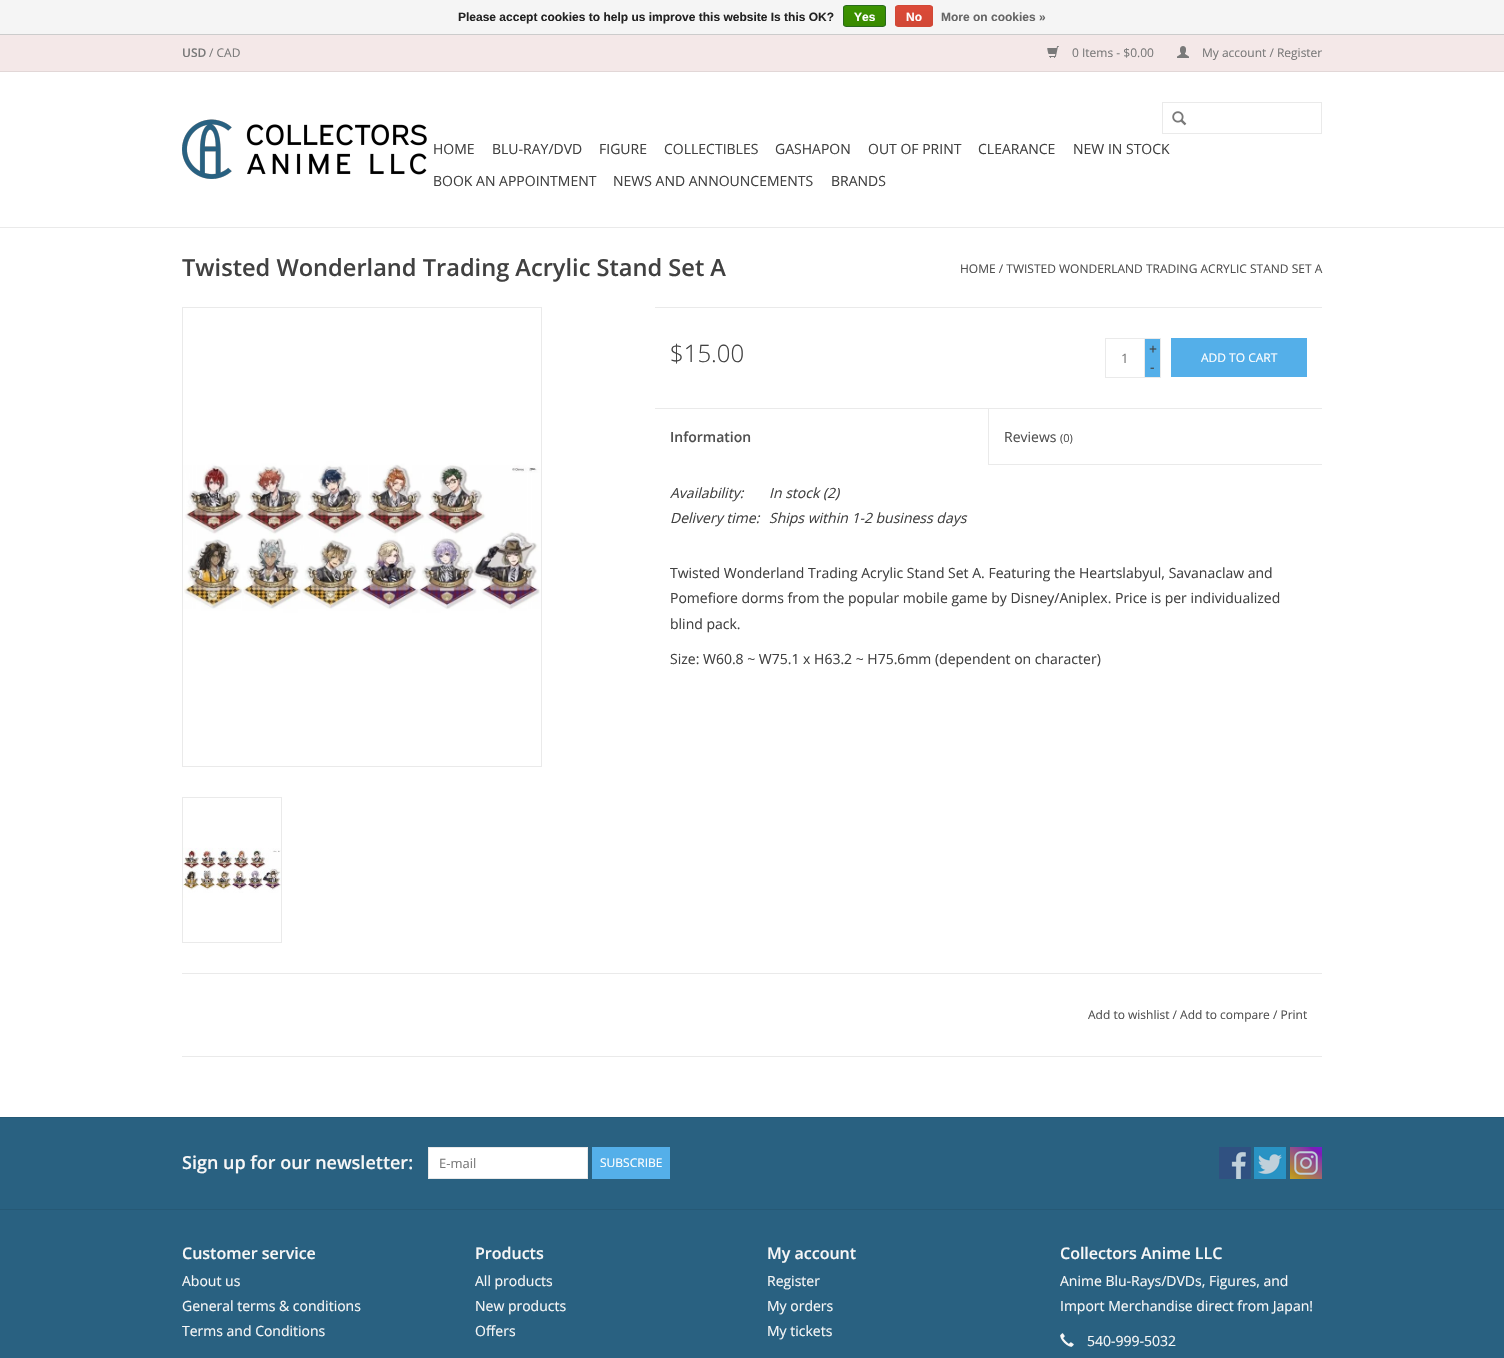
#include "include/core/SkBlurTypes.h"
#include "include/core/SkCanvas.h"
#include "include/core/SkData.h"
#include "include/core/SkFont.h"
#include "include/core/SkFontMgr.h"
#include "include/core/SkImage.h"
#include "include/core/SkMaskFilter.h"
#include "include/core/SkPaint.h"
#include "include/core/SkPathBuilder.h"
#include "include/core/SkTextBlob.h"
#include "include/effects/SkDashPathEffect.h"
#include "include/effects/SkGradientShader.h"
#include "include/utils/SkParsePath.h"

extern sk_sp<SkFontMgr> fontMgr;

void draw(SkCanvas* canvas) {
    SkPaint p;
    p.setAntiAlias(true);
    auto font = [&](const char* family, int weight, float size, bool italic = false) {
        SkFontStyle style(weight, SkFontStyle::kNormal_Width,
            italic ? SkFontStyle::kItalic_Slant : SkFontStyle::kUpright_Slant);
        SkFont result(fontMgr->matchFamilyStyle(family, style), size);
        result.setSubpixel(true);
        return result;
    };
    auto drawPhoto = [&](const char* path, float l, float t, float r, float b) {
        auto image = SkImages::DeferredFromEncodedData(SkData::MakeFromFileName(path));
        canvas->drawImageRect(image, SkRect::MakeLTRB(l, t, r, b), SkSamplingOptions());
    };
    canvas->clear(0xFFFFFFFF);
    p.setColor(0xFFF5F5F5);
    canvas->drawRect(SkRect::MakeLTRB(0, 0, 1504, 34), p);
    p.setColor(0xFFCCCCCC);
    canvas->drawRect(SkRect::MakeLTRB(0, 34, 1504, 35), p);
    auto font1 = font("Liberation Sans", 700, 12);
    p.setColor(0xFF222222);
    canvas->drawString("Please accept cookies to help us improve this website Is this OK?", 458, 21, font1, p);
    canvas->save();
    canvas->clipPath(SkPathBuilder().moveTo(846, 5).lineTo(883, 5).cubicTo(884.5f, 5, 886, 6.5f, 886, 8).lineTo(886, 24).cubicTo(886, 25.5f, 884.5f, 27, 883, 27).lineTo(846, 27).cubicTo(844.5f, 27, 843, 25.5f, 843, 24).lineTo(843, 8).cubicTo(843, 6.5f, 844.5f, 5, 846, 5).close().detach(), true);
    {
        const SkColor colors[] = {0xFF3C9300, 0xFF398A00};
        const float stops[] = {0, 1};
        const SkPoint ends[] = {{865, 6}, {865, 26}};
        p.setShader(SkGradientShader::MakeLinear(ends, colors, stops, 2, SkTileMode::kClamp));
        p.setAlpha(255);
    }
    canvas->drawRect(SkRect::MakeLTRB(843, 6, 886, 26), p);
    canvas->restore();
    p.setStyle(SkPaint::kStroke_Style);
    p.setStrokeWidth(1);
    p.setShader(nullptr);
    p.setColor(0xFF29691D);
    canvas->drawRoundRect(SkRect::MakeLTRB(843.5f, 5.5f, 885.5f, 26.5f), 2.5f, 2.5f, p);
    p.setStyle(SkPaint::kFill_Style);
    p.setColor(0xFFFFFFFF);
    canvas->drawString("Yes", 854, 21, font1, p);
    canvas->save();
    canvas->clipPath(SkPathBuilder().moveTo(898, 5).lineTo(930, 5).cubicTo(931.5f, 5, 933, 6.5f, 933, 8).lineTo(933, 24).cubicTo(933, 25.5f, 931.5f, 27, 930, 27).lineTo(898, 27).cubicTo(896.5f, 27, 895, 25.5f, 895, 24).lineTo(895, 8).cubicTo(895, 6.5f, 896.5f, 5, 898, 5).close().detach(), true);
    {
        const SkColor colors[] = {0xFFDC4A38, 0xFFD14836};
        const float stops[] = {0, 1};
        const SkPoint ends[] = {{914, 6}, {914, 26}};
        p.setShader(SkGradientShader::MakeLinear(ends, colors, stops, 2, SkTileMode::kClamp));
        p.setAlpha(255);
    }
    canvas->drawRect(SkRect::MakeLTRB(895, 6, 933, 26), p);
    canvas->restore();
    p.setStyle(SkPaint::kStroke_Style);
    p.setShader(nullptr);
    p.setColor(0xFFD14836);
    canvas->drawRoundRect(SkRect::MakeLTRB(895.5f, 5.5f, 932.5f, 26.5f), 2.5f, 2.5f, p);
    p.setStyle(SkPaint::kFill_Style);
    p.setColor(0xFFFFFFFF);
    canvas->drawString("No", 906, 21, font1, p);
    p.setColor(0xFF666666);
    canvas->drawString("More on cookies »", 941, 21, font1, p);
    {
        const struct { float l, t, r, b; SkColor color; } items[] = {
            {0, 227, 1504, 228, 0xFFEAEAEA},
            {0, 35, 1504, 71, 0xFFF4E8E8},
            {0, 71, 1504, 72, 0xFFE2D7D7},
        };
        for (auto [l, t, r, b, color] : items) {
            p.setColor(color);
            canvas->drawRect(SkRect::MakeLTRB(l, t, r, b), p);
        }
    }
    auto font2 = font("Open Sans", 600, 12);
    p.setColor(0xFF797979);
    canvas->drawString("USD", 182, 57, font2, p);
    auto font3 = font("Open Sans", 400, 12);
    canvas->drawString("/ CAD", 209, 57, font3, p);
    drawPhoto("media/1.png", 1047, 46, 1059, 58);
    canvas->drawString("0 Items - $0.00", 1072, 57, font3, p);
    drawPhoto("media/2.png", 1177, 46, 1189, 58);
    canvas->drawString("My account / Register", 1202, 57, font3, p);
    drawPhoto("media/3.png", 182, 119, 427, 179);
    p.setStyle(SkPaint::kStroke_Style);
    p.setColor(0xFFEAEAEA);
    canvas->drawRect(SkRect::MakeLTRB(1162.5f, 102.5f, 1321.5f, 133.5f), p);
    drawPhoto("media/4.png", 1172, 111, 1187, 126);
    auto font4 = font("Open Sans", 400, 14);
    p.setStyle(SkPaint::kFill_Style);
    p.setColor(0xFF414141);
    {
        const struct { const char* s; float x, y; } items[] = {
            {"HOME", 433, 154},
            {"BLU-RAY/DVD", 492, 154},
            {"FIGURE", 599, 154},
            {"COLLECTIBLES", 664, 154},
            {"GASHAPON", 775, 154},
            {"OUT OF PRINT", 868, 154},
            {"CLEARANCE", 978, 154},
            {"NEW IN STOCK", 1073, 154},
            {"BOOK AN APPOINTMENT", 433, 186},
            {"NEWS AND ANNOUNCEMENTS", 613, 186},
            {"BRANDS", 831, 186},
        };
        for (auto [s, x, y] : items) {
            canvas->drawString(s, x, y, font4, p);
        }
    }
    auto font5 = font("Open Sans", 600, 23.6f);
    canvas->drawString("Twisted Wonderland Trading Acrylic Stand Set A", 182, 276, font5, p);
    p.setColor(0xFF505050);
    canvas->drawString("HOME / TWISTED WONDERLAND TRADING ACRYLIC STAND SET A", 960, 273, font3, p);
    p.setStyle(SkPaint::kStroke_Style);
    p.setColor(0xFFEAEAEA);
    canvas->drawRect(SkRect::MakeLTRB(182.5f, 307.5f, 541.5f, 766.5f), p);
    drawPhoto("media/5.png", 183, 308, 541, 766);
    canvas->drawRect(SkRect::MakeLTRB(182.5f, 797.5f, 281.5f, 942.5f), p);
    drawPhoto("media/6.png", 183, 798, 281, 942);
    p.setStyle(SkPaint::kFill_Style);
    canvas->drawRect(SkRect::MakeLTRB(655, 307, 1322, 308), p);
    auto font6 = font("Open Sans", 300, 24);
    p.setColor(0xFF414141);
    canvas->drawString("$15.00", 670, 362, font6, p);
    p.setStyle(SkPaint::kStroke_Style);
    p.setColor(0xFFEAEAEA);
    canvas->drawRect(SkRect::MakeLTRB(1105.5f, 338.5f, 1144.5f, 377.5f), p);
    auto font7 = font("Open Sans", 400, 13);
    p.setStyle(SkPaint::kFill_Style);
    p.setColor(0xFF797979);
    canvas->drawString("1", 1121, 363, font7, p);
    {
        const struct { float l, t, r, b; SkColor color; } items[] = {
            {1145, 339, 1160, 377, 0xFF54AFE9},
            {1145, 338, 1161, 339, 0xFFEAEAEA},
            {1160, 338, 1161, 378, 0xFFEAEAEA},
            {1145, 377, 1161, 378, 0xFFEAEAEA},
        };
        for (auto [l, t, r, b, color] : items) {
            p.setColor(color);
            canvas->drawRect(SkRect::MakeLTRB(l, t, r, b), p);
        }
    }
    p.setColor(0xFF414141);
    canvas->drawString("+", 1149, 354, font4, p);
    canvas->drawString("-", 1150, 372, font4, p);
    p.setColor(0xFF54AFE9);
    canvas->drawRect(SkRect::MakeLTRB(1171, 338, 1307, 377), p);
    p.setColor(0xFFFFFFFF);
    canvas->drawString("ADD TO CART", 1201, 362, font3, p);
    p.setColor(0xFFEAEAEA);
    canvas->drawRect(SkRect::MakeLTRB(655, 408, 1322, 409), p);
    auto font8 = font("Open Sans", 600, 14);
    p.setColor(0xFF505050);
    canvas->drawString("Information", 670, 442, font8, p);
    p.setColor(0xFFEAEAEA);
    canvas->drawRect(SkRect::MakeLTRB(988, 464, 1322, 465), p);
    canvas->drawRect(SkRect::MakeLTRB(988, 409, 989, 465), p);
    p.setColor(0xFF505050);
    canvas->drawString("Reviews", 1004, 442, font4, p);
    auto font9 = font("Open Sans", 400, 11);
    canvas->drawString("(0)", 1060, 442, font9, p);
    auto font10 = font("Open Sans", 400, 14, true);
    p.setColor(0xFF414141);
    {
        const struct { const char* s; float x, y; } items[] = {
            {"Availability:", 670, 498},
            {"In stock (2)", 769, 498},
            {"Delivery time:", 670, 523},
            {"Ships within 1-2 business days", 769, 523},
        };
        for (auto [s, x, y] : items) {
            canvas->drawString(s, x, y, font10, p);
        }
    }
    {
        const struct { const char* s; float x, y; } items[] = {
            {"Twisted Wonderland Trading Acrylic Stand Set A. Featuring the Heartslabyul, Savanaclaw and", 670, 578},
            {"Pomefiore dorms from the popular mobile game by Disney/Aniplex. Price is per individualized", 670, 603},
            {"blind pack.", 670, 629},
            {"Size: W60.8 ~ W75.1 x H63.2 ~ H75.6mm (dependent on character)", 670, 664},
        };
        for (auto [s, x, y] : items) {
            canvas->drawString(s, x, y, font4, p);
        }
    }
    p.setColor(0xFFEAEAEA);
    canvas->drawRect(SkRect::MakeLTRB(182, 973, 1322, 974), p);
    canvas->drawRect(SkRect::MakeLTRB(182, 1056, 1322, 1057), p);
    p.setColor(0xFF505050);
    canvas->drawString("Add to wishlist / Add to compare / Print", 1088, 1019, font3, p);
    p.setColor(0xFF296181);
    canvas->drawRect(SkRect::MakeLTRB(0, 1118, 1504, 1358), p);
    p.setColor(0xFF265976);
    canvas->drawRect(SkRect::MakeLTRB(0, 1117, 1504, 1118), p);
    auto font11 = font("Open Sans", 600, 18);
    p.setColor(0xFFF7F7F7);
    canvas->drawString("Sign up for our newsletter:", 182, 1169, font11, p);
    p.setColor(0xFFFFFFFF);
    canvas->drawRect(SkRect::MakeLTRB(428.5f, 1147.5f, 587.5f, 1178.5f), p);
    p.setStyle(SkPaint::kStroke_Style);
    p.setColor(0xFFE9E9E9);
    canvas->drawRect(SkRect::MakeLTRB(428.5f, 1147.5f, 587.5f, 1178.5f), p);
    p.setStyle(SkPaint::kFill_Style);
    p.setColor(0xFF797979);
    canvas->drawString("E-mail", 439, 1168, font7, p);
    p.setColor(0xFF54AFE9);
    canvas->drawRect(SkRect::MakeLTRB(592, 1147, 670, 1179), p);
    p.setColor(0xFFFFFFFF);
    canvas->drawString("SUBSCRIBE", 600, 1167, font3, p);
    drawPhoto("media/7.png", 1219, 1147, 1251, 1179);
    drawPhoto("media/8.png", 1254, 1147, 1286, 1179);
    drawPhoto("media/9.png", 1290, 1147, 1322, 1179);
    p.setColor(0xFF265976);
    canvas->drawRect(SkRect::MakeLTRB(0, 1209, 1504, 1210), p);
    auto font12 = font("Open Sans", 600, 16);
    p.setColor(0xFFF7F7F7);
    canvas->drawString("Customer service", 182, 1259, font12, p);
    {
        const struct { const char* s; float x, y; } items[] = {
            {"About us", 182, 1286},
            {"General terms & conditions", 182, 1311},
            {"Terms and Conditions", 182, 1336},
        };
        for (auto [s, x, y] : items) {
            canvas->drawString(s, x, y, font4, p);
        }
    }
    canvas->drawString("Products", 475, 1259, font12, p);
    {
        const struct { const char* s; float x, y; } items[] = {
            {"All products", 475, 1286},
            {"New products", 475, 1311},
            {"Offers", 475, 1336},
        };
        for (auto [s, x, y] : items) {
            canvas->drawString(s, x, y, font4, p);
        }
    }
    canvas->drawString("My account", 767, 1259, font12, p);
    {
        const struct { const char* s; float x, y; } items[] = {
            {"Register", 767, 1286},
            {"My orders", 767, 1311},
            {"My tickets", 767, 1336},
        };
        for (auto [s, x, y] : items) {
            canvas->drawString(s, x, y, font4, p);
        }
    }
    canvas->drawString("Collectors Anime LLC", 1060, 1259, font12, p);
    canvas->drawString("Anime Blu-Rays/DVDs, Figures, and", 1060, 1286, font4, p);
    canvas->drawString("Import Merchandise direct from Japan!", 1060, 1311, font4, p);
    drawPhoto("media/10.png", 1060, 1333, 1074, 1347);
    canvas->drawString("540-999-5032", 1087, 1346, font4, p);
}
